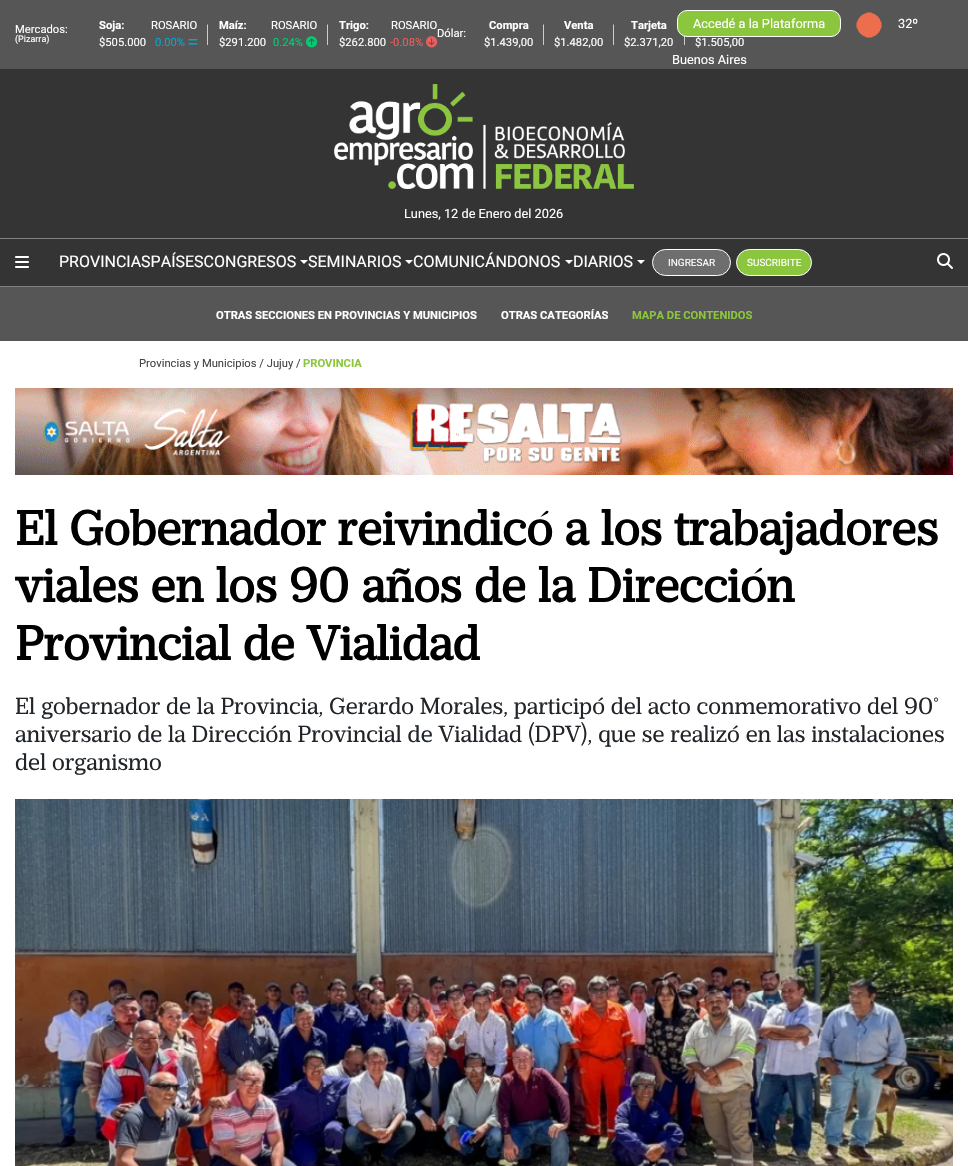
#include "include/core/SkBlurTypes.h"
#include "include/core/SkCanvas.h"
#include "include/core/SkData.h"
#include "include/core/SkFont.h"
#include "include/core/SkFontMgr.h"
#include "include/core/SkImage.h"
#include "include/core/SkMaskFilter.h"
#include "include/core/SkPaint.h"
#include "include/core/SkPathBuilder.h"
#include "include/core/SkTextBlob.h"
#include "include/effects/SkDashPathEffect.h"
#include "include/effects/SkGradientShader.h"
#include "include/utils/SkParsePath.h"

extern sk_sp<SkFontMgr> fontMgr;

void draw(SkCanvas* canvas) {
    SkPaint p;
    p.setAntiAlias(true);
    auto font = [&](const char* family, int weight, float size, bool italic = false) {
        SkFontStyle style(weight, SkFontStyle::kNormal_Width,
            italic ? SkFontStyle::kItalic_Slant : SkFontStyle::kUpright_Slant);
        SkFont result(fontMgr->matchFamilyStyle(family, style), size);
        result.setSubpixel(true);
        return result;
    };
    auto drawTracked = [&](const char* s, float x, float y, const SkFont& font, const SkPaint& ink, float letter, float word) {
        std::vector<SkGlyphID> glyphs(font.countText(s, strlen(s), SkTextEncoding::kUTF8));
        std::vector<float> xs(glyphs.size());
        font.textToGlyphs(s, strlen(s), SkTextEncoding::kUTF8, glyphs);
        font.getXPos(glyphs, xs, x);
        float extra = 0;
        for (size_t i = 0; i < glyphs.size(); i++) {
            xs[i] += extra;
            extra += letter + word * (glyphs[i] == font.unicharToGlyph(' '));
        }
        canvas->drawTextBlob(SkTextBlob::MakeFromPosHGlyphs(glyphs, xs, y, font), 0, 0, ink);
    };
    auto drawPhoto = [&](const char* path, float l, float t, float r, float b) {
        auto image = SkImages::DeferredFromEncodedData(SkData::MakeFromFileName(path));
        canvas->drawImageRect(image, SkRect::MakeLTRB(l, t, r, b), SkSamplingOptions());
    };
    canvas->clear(0xFFFFFFFF);
    p.setColor(0xFF343434);
    canvas->drawRect(SkRect::MakeLTRB(0, 69, 968, 286), p);
    p.setColor(0xFF565656);
    canvas->drawRect(SkRect::MakeLTRB(0, 0, 968, 69), p);
    auto font1 = font("Roboto", 400, 11.2f);
    p.setColor(0xFFFFFFFF);
    canvas->drawString("Mercados:", 15, 33, font1, p);
    auto font2 = font("Roboto", 400, 9);
    canvas->drawString("(Pizarra)", 15, 42, font2, p);
    auto font3 = font("Roboto", 700, 11.2f);
    canvas->drawString("Soja:", 99, 29, font3, p);
    canvas->drawString("ROSARIO", 151, 29, font1, p);
    canvas->drawString("$505.000", 99, 46, font1, p);
    p.setColor(0xFF00A9D3);
    canvas->drawString("0.00%", 155, 46, font1, p);
    drawPhoto("media/1.png", 188, 39, 198, 45);
    p.setColor(0xFF4D4D4D);
    canvas->drawPath(SkPathBuilder().moveTo(207, 24).lineTo(209, 24).lineTo(209, 25).lineTo(208, 25).close().detach(), p);
    p.setColor(0xFFCCCCCC);
    canvas->drawPath(SkPathBuilder().moveTo(207, 45).lineTo(207, 24).lineTo(208, 25).lineTo(208, 45).close().detach(), p);
    p.setColor(0xFFFFFFFF);
    canvas->drawString("Maíz:", 219, 29, font3, p);
    canvas->drawString("ROSARIO", 271, 29, font1, p);
    canvas->drawString("$291.200", 219, 46, font1, p);
    p.setColor(0xFF00CD74);
    canvas->drawString("0.24%", 273, 46, font1, p);
    drawPhoto("media/2.png", 306, 36, 318, 48);
    p.setColor(0xFF4D4D4D);
    canvas->drawPath(SkPathBuilder().moveTo(327, 24).lineTo(329, 24).lineTo(329, 25).lineTo(328, 25).close().detach(), p);
    p.setColor(0xFFCCCCCC);
    canvas->drawPath(SkPathBuilder().moveTo(327, 45).lineTo(327, 24).lineTo(328, 25).lineTo(328, 45).close().detach(), p);
    p.setColor(0xFFFFFFFF);
    canvas->drawString("Trigo:", 339, 29, font3, p);
    canvas->drawString("ROSARIO", 391, 29, font1, p);
    canvas->drawString("$262.800", 339, 46, font1, p);
    p.setColor(0xFFEF5C5C);
    canvas->drawString("-0.08%", 390, 46, font1, p);
    drawPhoto("media/3.png", 426, 36, 438, 48);
    p.setColor(0xFFFFFFFF);
    canvas->drawString("Dólar:", 437, 37, font1, p);
    canvas->drawString("Compra", 489, 29, font3, p);
    canvas->drawString("$1.439,00", 484, 46, font1, p);
    p.setColor(0xFF4D4D4D);
    canvas->drawPath(SkPathBuilder().moveTo(543, 24).lineTo(544, 24).lineTo(544, 25).close().detach(), p);
    p.setColor(0xFFCCCCCC);
    canvas->drawPath(SkPathBuilder().moveTo(543, 45).lineTo(543, 24).lineTo(544, 25).lineTo(544, 45).close().detach(), p);
    p.setColor(0xFFFFFFFF);
    canvas->drawString("Venta", 564, 29, font3, p);
    canvas->drawString("$1.482,00", 554, 46, font1, p);
    p.setColor(0xFF4D4D4D);
    canvas->drawPath(SkPathBuilder().moveTo(613, 24).lineTo(614, 24).lineTo(614, 25).close().detach(), p);
    p.setColor(0xFFCCCCCC);
    canvas->drawPath(SkPathBuilder().moveTo(613, 45).lineTo(613, 24).lineTo(614, 25).lineTo(614, 45).close().detach(), p);
    p.setColor(0xFFFFFFFF);
    canvas->drawString("Tarjeta", 631, 29, font3, p);
    canvas->drawString("$2.371,20", 624, 46, font1, p);
    p.setColor(0xFFCCCCCC);
    canvas->drawPath(SkPathBuilder().moveTo(684, 45).lineTo(684, 24).lineTo(685, 25).lineTo(685, 45).close().detach(), p);
    p.setColor(0xFFFFFFFF);
    canvas->drawString("$1.505,00", 695, 46, font1, p);
    p.setColor(0xFF8CC63F);
    canvas->drawRoundRect(SkRect::MakeLTRB(677.5f, 10.5f, 840.5f, 36.5f), 9.5f, 9.5f, p);
    p.setStyle(SkPaint::kStroke_Style);
    p.setStrokeWidth(1);
    p.setColor(0xFFFFFFFF);
    canvas->drawRoundRect(SkRect::MakeLTRB(677.5f, 10.5f, 840.5f, 36.5f), 9.5f, 9.5f, p);
    auto font4 = font("Roboto", 400, 12.75f);
    p.setStyle(SkPaint::kFill_Style);
    canvas->drawString("Accedé a la Plataforma", 693, 28, font4, p);
    drawPhoto("media/4.png", 856, 12, 882, 38);
    canvas->drawString("32º", 898, 28, font4, p);
    canvas->drawString("Buenos Aires", 672, 64, font4, p);
    p.setColor(0xFF808080);
    canvas->drawRect(SkRect::MakeLTRB(0, 238, 968, 239), p);
    drawPhoto("media/5.png", 334, 84, 634, 189);
    p.setColor(0xFFFFFFFF);
    canvas->drawString("Lunes, 12 de Enero del 2026", 404, 218, font4, p);
    drawPhoto("media/6.png", 15, 256, 29, 268);
    auto font5 = font("Roboto", 400, 16);
    canvas->drawString("PROVINCIASPAÍSESCONGRESOS", 59, 267, font5, p);
    canvas->drawPath(SkPathBuilder().moveTo(300, 260).lineTo(308, 260).lineTo(304, 264).close().detach(), p);
    canvas->drawString("SEMINARIOS", 308, 267, font5, p);
    canvas->drawPath(SkPathBuilder().moveTo(405, 260).lineTo(413, 260).lineTo(409, 264).close().detach(), p);
    canvas->drawString("COMUNICÁNDONOS", 413, 267, font5, p);
    canvas->drawPath(SkPathBuilder().moveTo(565, 260).lineTo(573, 260).lineTo(569, 264).close().detach(), p);
    canvas->drawString("DIARIOS", 573, 267, font5, p);
    canvas->drawPath(SkPathBuilder().moveTo(637, 260).lineTo(645, 260).lineTo(641, 264).close().detach(), p);
    p.setColor(0xFF6E6E6E);
    canvas->drawRoundRect(SkRect::MakeLTRB(652.5f, 249.5f, 730.5f, 275.5f), 13, 13, p);
    p.setStyle(SkPaint::kStroke_Style);
    p.setColor(0xFFFFFFFF);
    canvas->drawRoundRect(SkRect::MakeLTRB(652.5f, 249.5f, 730.5f, 275.5f), 13, 13, p);
    auto font6 = font("Roboto", 400, 10);
    p.setStyle(SkPaint::kFill_Style);
    canvas->drawString("INGRESAR", 668, 266, font6, p);
    p.setColor(0xFF8CC63F);
    canvas->drawRoundRect(SkRect::MakeLTRB(736.5f, 249.5f, 811.5f, 275.5f), 13, 13, p);
    p.setStyle(SkPaint::kStroke_Style);
    p.setColor(0xFFFFFFFF);
    canvas->drawRoundRect(SkRect::MakeLTRB(736.5f, 249.5f, 811.5f, 275.5f), 13, 13, p);
    p.setStyle(SkPaint::kFill_Style);
    canvas->drawString("SUSCRIBITE", 747, 266, font6, p);
    drawPhoto("media/7.png", 937, 253, 953, 269);
    p.setColor(0xFF565656);
    canvas->drawRect(SkRect::MakeLTRB(0, 287, 968, 341), p);
    p.setColor(0xFF808080);
    canvas->drawRect(SkRect::MakeLTRB(0, 286, 968, 287), p);
    p.setColor(0xFFFFFFFF);
    canvas->drawString("OTRAS SECCIONES EN PROVINCIAS Y MUNICIPIOS", 216, 319, font3, p);
    canvas->drawString("OTRAS CATEGORÍAS", 501, 319, font3, p);
    p.setColor(0xFF8CC63F);
    canvas->drawString("MAPA DE CONTENIDOS", 632, 319, font3, p);
    p.setColor(0xFF444444);
    canvas->drawString("Provincias y Municipios / Jujuy /", 139, 367, font1, p);
    p.setColor(0xFF8CC63F);
    canvas->drawString("PROVINCIA", 303, 367, font3, p);
    drawPhoto("media/8.png", 15, 388, 953, 475);
    auto font7 = font("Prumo", 700, 48);
    p.setColor(0xFF000000);
    canvas->drawString("El Gobernador reivindicó a los trabajadores", 15, 545, font7, p);
    drawTracked("viales en los 90 años de la Dirección", 15, 602, font7, p, 0, 0.25f);
    canvas->drawString("Provincial de Vialidad", 15, 660, font7, p);
    auto font8 = font("Prumo", 100, 23.2f);
    p.setColor(0xFF212529);
    {
        const struct { const char* s; float x, y; } items[] = {
            {"El gobernador de la Provincia, Gerardo Morales, participó del acto conmemorativo del 90°", 15, 714},
            {"aniversario de la Dirección Provincial de Vialidad (DPV), que se realizó en las instalaciones", 15, 742},
            {"del organismo", 15, 770},
        };
        for (auto [s, x, y] : items) {
            canvas->drawString(s, x, y, font8, p);
        }
    }
    drawPhoto("media/9.png", 15, 799, 953, 1166);
}
